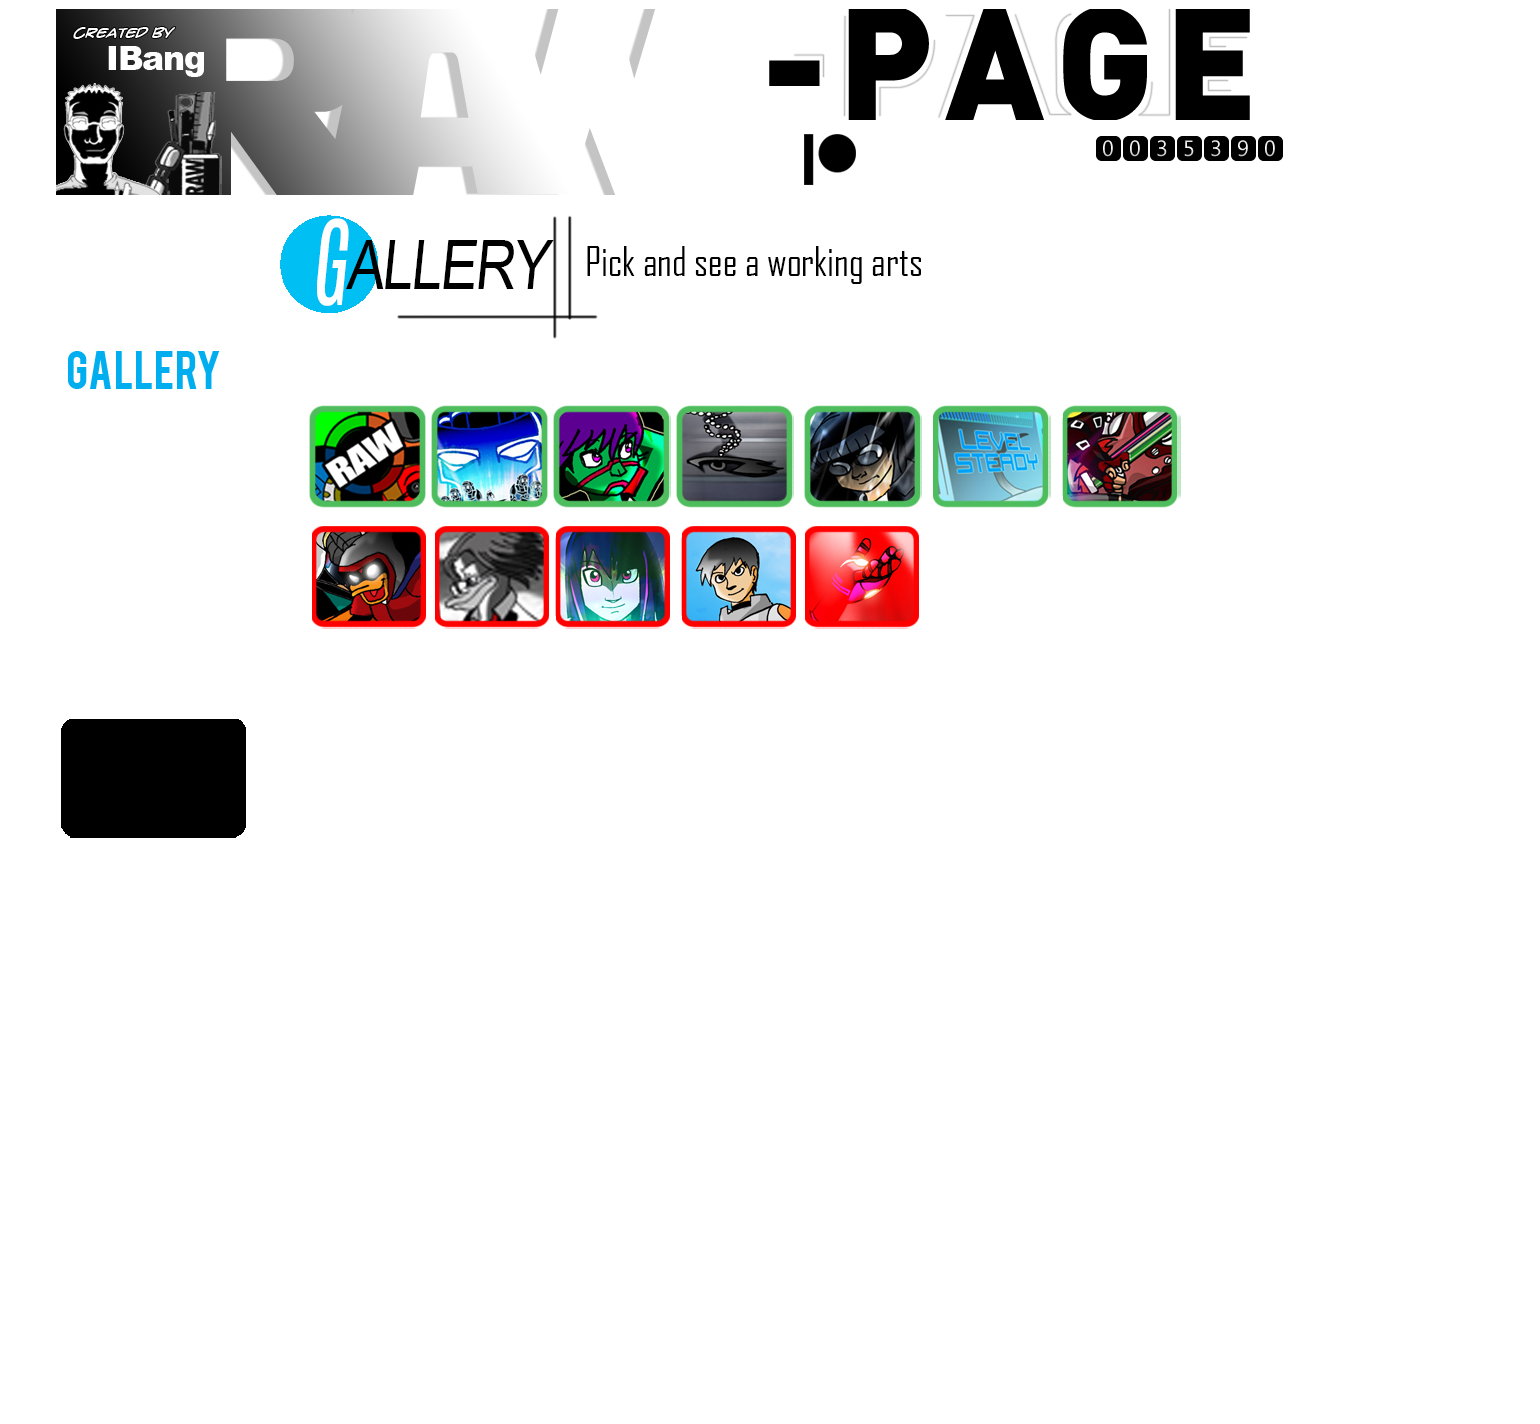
#include "include/core/SkBlurTypes.h"
#include "include/core/SkCanvas.h"
#include "include/core/SkData.h"
#include "include/core/SkFont.h"
#include "include/core/SkFontMgr.h"
#include "include/core/SkImage.h"
#include "include/core/SkMaskFilter.h"
#include "include/core/SkPaint.h"
#include "include/core/SkPathBuilder.h"
#include "include/core/SkTextBlob.h"
#include "include/effects/SkDashPathEffect.h"
#include "include/effects/SkGradientShader.h"
#include "include/utils/SkParsePath.h"

extern sk_sp<SkFontMgr> fontMgr;

void draw(SkCanvas* canvas) {
    SkPaint p;
    p.setAntiAlias(true);
    auto drawPhoto = [&](const char* path, float l, float t, float r, float b) {
        auto image = SkImages::DeferredFromEncodedData(SkData::MakeFromFileName(path));
        canvas->drawImageRect(image, SkRect::MakeLTRB(l, t, r, b), SkSamplingOptions());
    };
    canvas->clear(0xFFFFFFFF);
    drawPhoto("media/1.png", 56, 9, 655, 195);
    drawPhoto("media/2.png", 769, 9, 1250, 120);
    drawPhoto("media/3.png", 804, 134, 856, 185);
    drawPhoto("media/4.png", 1096, 136, 1283, 161);
    drawPhoto("media/5.png", 68, 350, 220, 389);
    drawPhoto("media/6.png", 61, 719, 246, 838);
    drawPhoto("media/7.png", 280, 215, 1181, 629);
}
